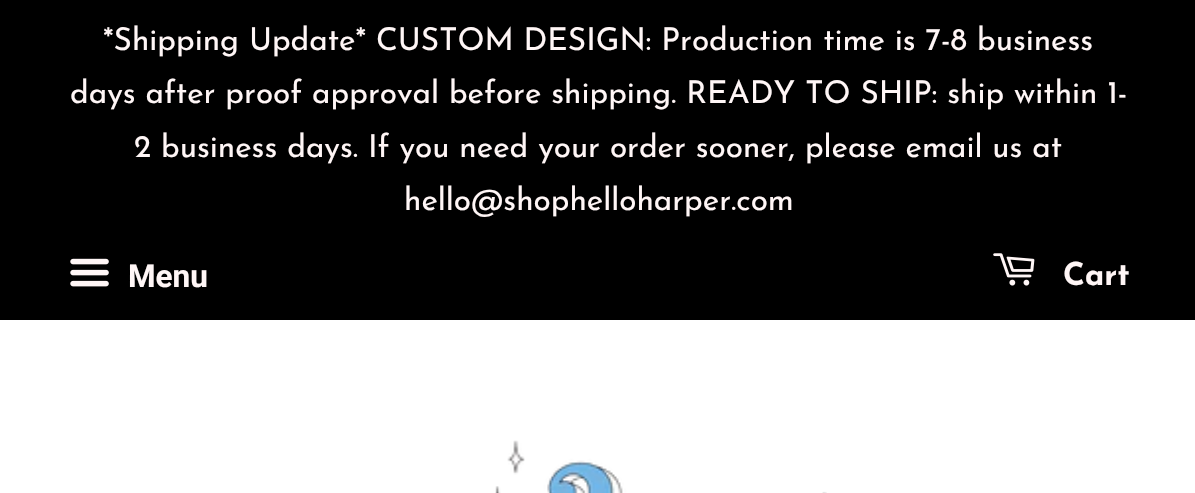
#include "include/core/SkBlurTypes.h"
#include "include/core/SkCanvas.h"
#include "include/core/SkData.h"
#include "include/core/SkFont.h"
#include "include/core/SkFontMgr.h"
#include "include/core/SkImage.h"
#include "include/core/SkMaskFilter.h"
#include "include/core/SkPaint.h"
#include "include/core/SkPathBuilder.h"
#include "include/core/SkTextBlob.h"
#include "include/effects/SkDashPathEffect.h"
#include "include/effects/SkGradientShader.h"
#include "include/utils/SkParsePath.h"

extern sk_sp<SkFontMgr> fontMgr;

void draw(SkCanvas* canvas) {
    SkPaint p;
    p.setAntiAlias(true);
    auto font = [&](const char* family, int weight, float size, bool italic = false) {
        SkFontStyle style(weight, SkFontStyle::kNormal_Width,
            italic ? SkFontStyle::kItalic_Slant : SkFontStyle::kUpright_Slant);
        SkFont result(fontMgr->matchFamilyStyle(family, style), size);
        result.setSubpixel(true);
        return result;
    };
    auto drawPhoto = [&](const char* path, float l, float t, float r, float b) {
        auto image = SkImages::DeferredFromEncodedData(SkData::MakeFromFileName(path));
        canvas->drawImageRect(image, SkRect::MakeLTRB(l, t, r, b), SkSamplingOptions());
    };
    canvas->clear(0xFFFFFFFF);
    p.setColor(0xFF000000);
    canvas->drawRect(SkRect::MakeLTRB(0, 0, 1195, 320), p);
    auto font1 = font("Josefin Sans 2", 100, 31.5f);
    p.setColor(0xFFFFF6F6);
    {
        const struct { const char* s; float x, y; } items[] = {
            {"*Shipping Update* CUSTOM DESIGN: Production time is 7-8 business", 103, 50},
            {"days after proof approval before shipping. READY TO SHIP: ship within 1-", 70, 103},
            {"2 business days. If you need your order sooner, please email us at", 134, 157},
            {"hello@shophelloharper.com", 404, 210},
        };
        for (auto [s, x, y] : items) {
            canvas->drawString(s, x, y, font1, p);
        }
    }
    drawPhoto("media/1.png", 70, 258, 109, 287);
    auto font2 = font("Roboto", 700, 31.5f);
    canvas->drawString("Menu", 128, 287, font2, p);
    drawPhoto("media/2.png", 993, 253, 1035, 286);
    auto font3 = font("Josefin Sans", 100, 31.5f);
    canvas->drawString("Cart", 1063, 285, font3, p);
    drawPhoto("media/3.png", 495, 440, 827, 493);
}
